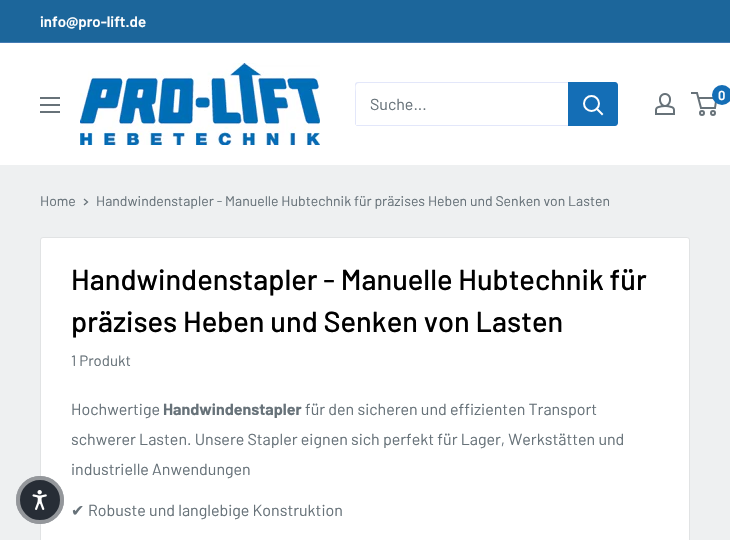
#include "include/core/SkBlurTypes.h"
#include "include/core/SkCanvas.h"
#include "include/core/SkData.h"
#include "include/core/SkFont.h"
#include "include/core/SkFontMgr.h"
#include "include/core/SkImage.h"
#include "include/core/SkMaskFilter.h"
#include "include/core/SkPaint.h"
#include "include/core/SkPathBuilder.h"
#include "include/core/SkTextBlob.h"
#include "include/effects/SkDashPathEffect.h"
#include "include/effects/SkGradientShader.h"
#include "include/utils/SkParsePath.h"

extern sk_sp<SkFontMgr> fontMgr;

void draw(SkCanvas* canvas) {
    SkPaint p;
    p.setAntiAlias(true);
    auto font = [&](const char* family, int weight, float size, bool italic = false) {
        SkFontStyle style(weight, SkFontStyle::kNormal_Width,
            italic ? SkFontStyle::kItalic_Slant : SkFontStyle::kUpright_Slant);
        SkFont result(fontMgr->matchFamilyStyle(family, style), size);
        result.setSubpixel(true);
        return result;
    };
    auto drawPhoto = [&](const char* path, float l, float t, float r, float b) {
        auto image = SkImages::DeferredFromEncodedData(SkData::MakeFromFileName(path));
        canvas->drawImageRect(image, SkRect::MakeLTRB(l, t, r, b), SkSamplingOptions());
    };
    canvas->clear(0xFFEEF0F1);
    p.setColor(0xFF1C669B);
    canvas->drawRect(SkRect::MakeLTRB(0, 0, 730, 42), p);
    p.setColor(0xFF457CB4);
    canvas->drawRect(SkRect::MakeLTRB(0, 42, 730, 43), p);
    auto font1 = font("Barlow", 600, 15);
    p.setColor(0xFFFFFFFF);
    canvas->drawString("info@pro-lift.de", 40, 27, font1, p);
    canvas->drawRect(SkRect::MakeLTRB(0, 43, 730, 165), p);
    drawPhoto("media/1.png", 80, 63, 320, 145);
    drawPhoto("media/2.png", 655, 93, 675, 115);
    p.setStyle(SkPaint::kStroke_Style);
    p.setStrokeWidth(2);
    p.setColor(0xFF677279);
    canvas->drawCircle(702, 113, 2, p);
    canvas->drawCircle(713, 113, 2, p);
    canvas->drawPath(SkPathBuilder().moveTo(698.5f, 98).lineTo(716.5f, 98).lineTo(715, 108).lineTo(701, 108).lineTo(697, 93).lineTo(691, 93).detach(), p);
    p.setStyle(SkPaint::kFill_Style);
    p.setColor(0xFF146EB6);
    canvas->drawCircle(722, 95, 10, p);
    auto font2 = font("Barlow", 600, 13);
    p.setColor(0xFFFFFFFF);
    canvas->drawString("0", 718, 100, font2, p);
    drawPhoto("media/3.png", 40, 97, 60, 113);
    p.setColor(0xFFE3E7FA);
    canvas->drawPath(SkPathBuilder().moveTo(356, 125).cubicTo(356, 126, 357, 126, 358, 126).lineTo(615, 126).cubicTo(617, 126, 618, 125, 618, 123).lineTo(618, 85).cubicTo(618, 84, 618, 83, 617, 83).lineTo(617, 116).cubicTo(617, 118, 619, 125, 614, 125).close().detach(), p);
    canvas->drawPath(SkPathBuilder().moveTo(359, 83).lineTo(617, 83).cubicTo(617, 82, 616, 82, 615, 82).lineTo(358, 82).cubicTo(356, 82, 355, 83, 355, 85).lineTo(355, 123).cubicTo(355, 124, 355, 125, 356, 125).lineTo(356, 92).cubicTo(356, 90, 354, 83, 359, 83).close().detach(), p);
    auto font3 = font("Barlow", 400, 16);
    p.setColor(0xFF677279);
    canvas->drawString("Suche...", 370, 110, font3, p);
    p.setColor(0xFF146EB6);
    canvas->drawPath(SkPathBuilder().moveTo(568, 82).lineTo(615, 82).cubicTo(616.5f, 82, 618, 83.5f, 618, 85).lineTo(618, 123).cubicTo(618, 124.5f, 616.5f, 126, 615, 126).lineTo(568, 126).close().detach(), p);
    p.setStyle(SkPaint::kStroke_Style);
    p.setStrokeCap(SkPaint::kSquare_Cap);
    p.setColor(0xFFFFFFFF);
    canvas->drawPath(SkPathBuilder().moveTo(602, 114).lineTo(597, 109).detach(), p);
    p.setStrokeCap(SkPaint::kButt_Cap);
    canvas->drawCircle(591.5f, 103.5f, 7.5f, p);
    p.setStyle(SkPaint::kFill_Style);
    canvas->drawRoundRect(SkRect::MakeLTRB(40.5f, 237.5f, 689.5f, 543.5f), 2.5f, 2.5f, p);
    p.setStyle(SkPaint::kStroke_Style);
    p.setStrokeWidth(1);
    p.setColor(0xFFE1E3E4);
    canvas->drawRoundRect(SkRect::MakeLTRB(40.5f, 237.5f, 689.5f, 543.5f), 2.5f, 2.5f, p);
    p.setStyle(SkPaint::kFill_Style);
    p.setColor(0xFF272D36);
    canvas->drawCircle(40, 500, 24, p);
    p.setStyle(SkPaint::kStroke_Style);
    p.setStrokeWidth(4);
    p.setColor(0x80FFFFFF);
    canvas->drawCircle(40, 500, 22, p);
    drawPhoto("media/4.png", 32, 490, 47, 510);
    auto font4 = font("Barlow", 400, 14);
    p.setStyle(SkPaint::kFill_Style);
    p.setColor(0xFF677279);
    canvas->drawString("Home", 40, 206, font4, p);
    p.setStyle(SkPaint::kStroke_Style);
    p.setStrokeWidth(1.3f);
    p.setStrokeCap(SkPaint::kSquare_Cap);
    canvas->drawPath(SkPathBuilder().moveTo(84.5f, 199.5f).lineTo(87.5f, 202).lineTo(84.5f, 204.5f).detach(), p);
    p.setStyle(SkPaint::kFill_Style);
    canvas->drawString("Handwindenstapler - Manuelle Hubtechnik für präzises Heben und Senken von Lasten", 96, 206, font4, p);
    auto font5 = font("Barlow", 500, 29);
    p.setColor(0xFF000000);
    canvas->drawString("Handwindenstapler - Manuelle Hubtechnik für", 71, 290, font5, p);
    canvas->drawString("präzises Heben und Senken von Lasten", 71, 332, font5, p);
    auto font6 = font("Barlow", 400, 15);
    p.setColor(0xFF677279);
    canvas->drawString("1 Produkt", 71, 366, font6, p);
    canvas->drawString("Hochwertige", 71, 415, font3, p);
    auto font7 = font("Barlow", 700, 16);
    canvas->drawString("Handwindenstapler", 163, 415, font7, p);
    {
        const struct { const char* s; float x, y; } items[] = {
            {"für den sicheren und effizienten Transport", 305, 415},
            {"schwerer Lasten. Unsere Stapler eignen sich perfekt für Lager, Werkstätten und", 71, 445},
            {"industrielle Anwendungen", 71, 475},
        };
        for (auto [s, x, y] : items) {
            canvas->drawString(s, x, y, font3, p);
        }
    }
    auto font8 = font("DejaVu Sans", 400, 16);
    canvas->drawString("✔", 71, 516, font8, p);
    canvas->drawString("Robuste und langlebige Konstruktion", 88, 516, font3, p);
}
